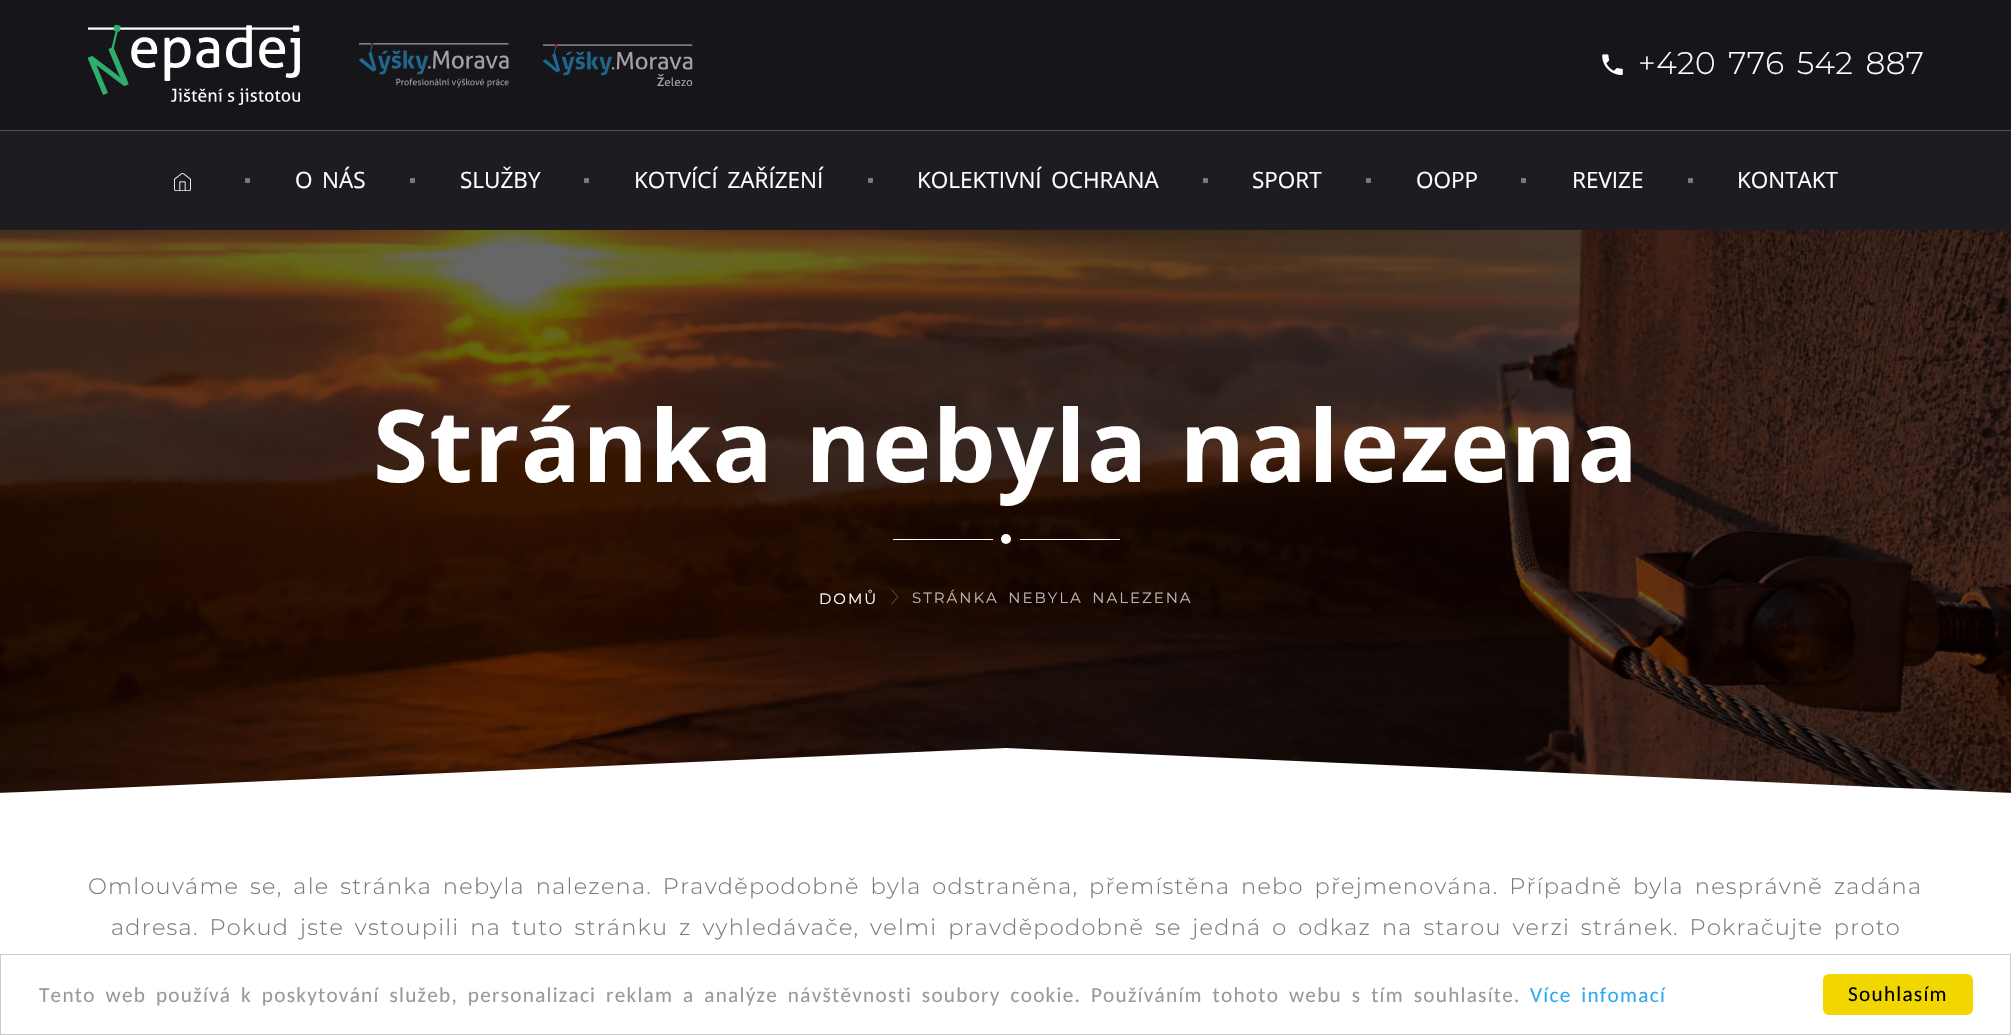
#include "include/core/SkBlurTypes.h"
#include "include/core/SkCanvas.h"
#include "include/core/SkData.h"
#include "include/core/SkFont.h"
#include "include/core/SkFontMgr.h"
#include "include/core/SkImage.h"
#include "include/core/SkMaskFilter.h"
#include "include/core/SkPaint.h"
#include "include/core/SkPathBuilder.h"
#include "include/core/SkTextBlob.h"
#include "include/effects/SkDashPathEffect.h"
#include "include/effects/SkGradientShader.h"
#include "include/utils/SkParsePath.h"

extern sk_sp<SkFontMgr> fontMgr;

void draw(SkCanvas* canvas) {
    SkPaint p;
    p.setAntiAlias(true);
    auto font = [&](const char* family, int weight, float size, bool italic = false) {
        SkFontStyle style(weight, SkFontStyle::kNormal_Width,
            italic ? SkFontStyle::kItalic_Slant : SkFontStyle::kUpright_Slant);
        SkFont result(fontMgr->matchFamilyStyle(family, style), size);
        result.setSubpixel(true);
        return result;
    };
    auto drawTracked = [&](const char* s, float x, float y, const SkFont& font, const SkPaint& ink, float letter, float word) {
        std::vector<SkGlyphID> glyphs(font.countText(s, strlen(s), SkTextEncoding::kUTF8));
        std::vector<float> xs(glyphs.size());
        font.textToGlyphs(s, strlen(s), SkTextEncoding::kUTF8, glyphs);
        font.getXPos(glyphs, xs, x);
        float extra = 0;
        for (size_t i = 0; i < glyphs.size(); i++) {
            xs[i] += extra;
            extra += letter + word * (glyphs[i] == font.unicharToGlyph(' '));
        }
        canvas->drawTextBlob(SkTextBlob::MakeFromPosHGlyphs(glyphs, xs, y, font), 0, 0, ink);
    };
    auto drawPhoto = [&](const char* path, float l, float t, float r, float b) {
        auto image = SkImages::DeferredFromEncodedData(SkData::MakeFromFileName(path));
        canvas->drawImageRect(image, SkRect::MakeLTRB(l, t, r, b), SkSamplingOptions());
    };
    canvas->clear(0xFFFFFFFF);
    p.setColor(0xFF161519);
    canvas->drawRect(SkRect::MakeLTRB(0, 0, 2011, 130), p);
    p.setColor(0xFF42546D);
    canvas->drawRect(SkRect::MakeLTRB(0, 130, 2011, 131), p);
    drawPhoto("media/1.png", 88, 25, 300, 105);
    drawPhoto("media/2.png", 359, 43, 509, 88);
    drawPhoto("media/3.png", 543, 44, 693, 86);
    drawPhoto("media/4.png", 1602, 54, 1623, 75);
    auto font1 = font("Montserrat", 300, 31.25f);
    p.setColor(0xFFFFFFFF);
    drawTracked("+420 776 542 887", 1638, 74, font1, p, 0.4f, 3.75f);
    p.setColor(0xFF1E1C21);
    canvas->drawRect(SkRect::MakeLTRB(0, 131, 2011, 230), p);
    drawPhoto("media/5.png", 174, 173, 191, 191);
    p.setColor(0xFF7A7A7A);
    canvas->drawRoundRect(SkRect::MakeLTRB(245, 178, 250, 183), 1, 1, p);
    auto font2 = font("Open Sans", 400, 22.5f);
    p.setColor(0xFFFFFFFF);
    drawTracked("O NÁS", 295, 188, font2, p, 0, 3.75f);
    p.setColor(0xFF7A7A7A);
    canvas->drawRoundRect(SkRect::MakeLTRB(410, 178, 415, 183), 1, 1, p);
    p.setColor(0xFFFFFFFF);
    canvas->drawString("SLUŽBY", 460, 188, font2, p);
    p.setColor(0xFF7A7A7A);
    canvas->drawRoundRect(SkRect::MakeLTRB(584, 178, 589, 183), 1, 1, p);
    p.setColor(0xFFFFFFFF);
    drawTracked("KOTVÍCÍ ZAŘÍZENÍ", 634, 188, font2, p, 0, 3.75f);
    p.setColor(0xFF7A7A7A);
    canvas->drawRoundRect(SkRect::MakeLTRB(868, 178, 873, 183), 1, 1, p);
    p.setColor(0xFFFFFFFF);
    drawTracked("KOLEKTIVNÍ OCHRANA", 917, 188, font2, p, 0, 3.75f);
    p.setColor(0xFF7A7A7A);
    canvas->drawRoundRect(SkRect::MakeLTRB(1203, 178, 1208, 183), 1, 1, p);
    p.setColor(0xFFFFFFFF);
    canvas->drawString("SPORT", 1252, 188, font2, p);
    p.setColor(0xFF7A7A7A);
    canvas->drawRoundRect(SkRect::MakeLTRB(1366, 178, 1371, 183), 1, 1, p);
    p.setColor(0xFFFFFFFF);
    canvas->drawString("OOPP", 1416, 188, font2, p);
    p.setColor(0xFF7A7A7A);
    canvas->drawRoundRect(SkRect::MakeLTRB(1521, 178, 1526, 183), 1, 1, p);
    p.setColor(0xFFFFFFFF);
    canvas->drawString("REVIZE", 1572, 188, font2, p);
    p.setColor(0xFF7A7A7A);
    canvas->drawRoundRect(SkRect::MakeLTRB(1688, 178, 1693, 183), 1, 1, p);
    p.setColor(0xFFFFFFFF);
    canvas->drawString("KONTAKT", 1737, 188, font2, p);
    drawPhoto("media/6.png", 0, 230, 2011, 793);
    p.setColor(0x99000000);
    canvas->drawRect(SkRect::MakeLTRB(0, 230, 2011, 793), p);
    auto font3 = font("Open Sans", 700, 100);
    p.setColor(0xFFFFFFFF);
    drawTracked("Stránka nebyla nalezena", 373, 482, font3, p, 1.25f, 3.75f);
    canvas->drawCircle(1006, 539, 5, p);
    canvas->drawRect(SkRect::MakeLTRB(893, 539, 993, 540), p);
    canvas->drawRect(SkRect::MakeLTRB(1020, 539, 1120, 540), p);
    auto font4 = font("Montserrat", 400, 15);
    drawTracked("DOMŮ", 819, 604, font4, p, 1.95f, 0);
    drawPhoto("media/7.png", 891, 589, 899, 605);
    p.setColor(0xFFBAB5B3);
    drawTracked("STRÁNKA NEBYLA NALEZENA", 912, 603, font4, p, 1.95f, 3.75f);
    p.setColor(0xFFFFFFFF);
    canvas->drawPath(SkPathBuilder().moveTo(1006, 748).lineTo(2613, 820).lineTo(-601, 820).close().detach(), p);
    auto font5 = font("Montserrat", 300, 22.5f);
    p.setColor(0xFF7A7A7A);
    drawTracked("Omlouváme se, ale stránka nebyla nalezena. Pravděpodobně byla odstraněna, přemístěna nebo přejmenována. Případně byla nesprávně zadána", 88, 894, font5, p, 1.25f, 3.75f);
    drawTracked("adresa. Pokud jste vstoupili na tuto stránku z vyhledávače, velmi pravděpodobně se jedná o odkaz na starou verzi stránek. Pokračujte proto", 111, 935, font5, p, 1.25f, 3.75f);
    p.setStyle(SkPaint::kStroke_Style);
    p.setStrokeWidth(1);
    p.setColor(0xFFCCCCCC);
    canvas->drawRect(SkRect::MakeLTRB(0.5f, 954.5f, 2010.5f, 1034.5f), p);
    auto font6 = font("Carlito", 400, 21.25f);
    p.setStyle(SkPaint::kFill_Style);
    p.setColor(0xFF999999);
    drawTracked("Tento web používá k poskytování služeb, personalizaci reklam a analýze návštěvnosti soubory cookie. Používáním tohoto webu s tím souhlasíte.", 39, 1002, font6, p, 1.25f, 3.75f);
    p.setColor(0xFF31A8F0);
    drawTracked("Více infomací", 1530, 1002, font6, p, 1.25f, 3.75f);
    p.setColor(0xFFF1D600);
    canvas->drawRoundRect(SkRect::MakeLTRB(1823, 974, 1973, 1015), 6, 6, p);
    p.setColor(0xFF000000);
    drawTracked("Souhlasím", 1848, 1001, font6, p, 1.25f, 0);
}
